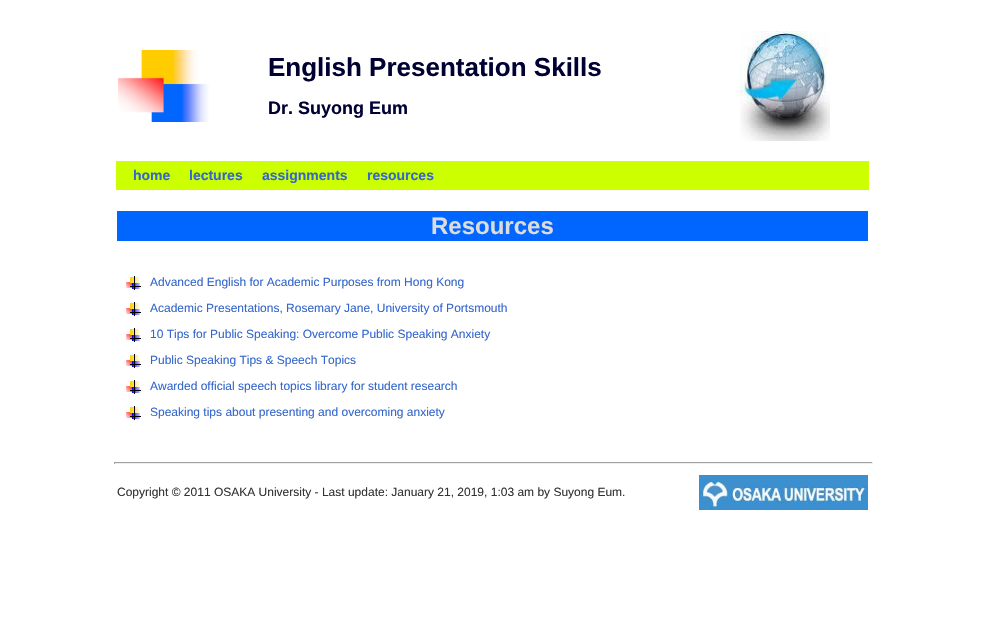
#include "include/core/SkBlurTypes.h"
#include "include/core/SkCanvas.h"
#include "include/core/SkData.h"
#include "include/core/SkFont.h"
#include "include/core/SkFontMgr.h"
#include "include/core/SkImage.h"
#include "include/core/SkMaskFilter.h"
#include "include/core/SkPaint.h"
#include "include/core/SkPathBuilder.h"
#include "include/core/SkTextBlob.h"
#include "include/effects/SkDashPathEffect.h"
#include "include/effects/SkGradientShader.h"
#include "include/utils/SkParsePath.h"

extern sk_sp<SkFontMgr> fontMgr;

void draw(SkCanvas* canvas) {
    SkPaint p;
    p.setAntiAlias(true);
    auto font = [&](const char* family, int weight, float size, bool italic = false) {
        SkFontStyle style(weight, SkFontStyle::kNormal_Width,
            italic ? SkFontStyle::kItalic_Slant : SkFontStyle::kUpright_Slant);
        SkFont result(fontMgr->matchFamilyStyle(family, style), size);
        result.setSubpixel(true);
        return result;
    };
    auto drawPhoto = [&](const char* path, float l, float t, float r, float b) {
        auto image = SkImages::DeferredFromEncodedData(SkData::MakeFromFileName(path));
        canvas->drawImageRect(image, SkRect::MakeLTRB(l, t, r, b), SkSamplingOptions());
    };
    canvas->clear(0xFFFFFFFF);
    drawPhoto("media/1.png", 118, 50, 209, 122);
    auto font1 = font("Liberation Sans", 700, 26);
    p.setColor(0xFF000033);
    canvas->drawString("English Presentation Skills", 268, 76, font1, p);
    auto font2 = font("Liberation Sans", 700, 18);
    canvas->drawString("Dr. Suyong Eum", 268, 114, font2, p);
    drawPhoto("media/2.png", 740, 31, 830, 141);
    p.setColor(0xFFCCFF00);
    canvas->drawRect(SkRect::MakeLTRB(116, 161, 869, 190), p);
    auto font3 = font("Liberation Sans", 700, 14);
    p.setColor(0xFF3366CC);
    {
        const struct { const char* s; float x, y; } items[] = {
            {"home", 133, 180},
            {"lectures", 189, 180},
            {"assignments", 262, 180},
            {"resources", 367, 180},
        };
        for (auto [s, x, y] : items) {
            canvas->drawString(s, x, y, font3, p);
        }
    }
    p.setColor(0xFF0066FF);
    canvas->drawRect(SkRect::MakeLTRB(117, 211, 868, 241), p);
    auto font4 = font("Liberation Sans", 700, 24);
    p.setColor(0xFFDCDCDC);
    canvas->drawString("Resources", 431, 234, font4, p);
    drawPhoto("media/3.png", 126, 276, 141, 290);
    auto font5 = font("Liberation Sans", 400, 12);
    p.setColor(0xFF3366CC);
    canvas->drawString("Advanced English for Academic Purposes from Hong Kong", 150, 286, font5, p);
    drawPhoto("media/3.png", 126, 302, 141, 316);
    canvas->drawString("Academic Presentations, Rosemary Jane, University of Portsmouth", 150, 312, font5, p);
    drawPhoto("media/3.png", 126, 328, 141, 342);
    canvas->drawString("10 Tips for Public Speaking: Overcome Public Speaking Anxiety", 150, 338, font5, p);
    drawPhoto("media/3.png", 126, 354, 141, 368);
    canvas->drawString("Public Speaking Tips & Speech Topics", 150, 364, font5, p);
    drawPhoto("media/3.png", 126, 380, 141, 394);
    canvas->drawString("Awarded official speech topics library for student research", 150, 390, font5, p);
    drawPhoto("media/3.png", 126, 406, 141, 420);
    canvas->drawString("Speaking tips about presenting and overcoming anxiety", 150, 416, font5, p);
    {
        const struct { float l, t, r, b; SkColor color; } items[] = {
            {114, 462, 873, 463, 0xFF9F9F9F},
            {872, 462, 873, 464, 0xFFEEEEEE},
            {114, 463, 873, 464, 0xFFEEEEEE},
            {114, 462, 115, 464, 0xFF9F9F9F},
        };
        for (auto [l, t, r, b, color] : items) {
            p.setColor(color);
            canvas->drawRect(SkRect::MakeLTRB(l, t, r, b), p);
        }
    }
    p.setColor(0xFF333333);
    canvas->drawString("Copyright © 2011 OSAKA University - Last update: January 21, 2019, 1:03 am by Suyong Eum.", 117, 496, font5, p);
    drawPhoto("media/4.png", 699, 475, 868, 510);
}
